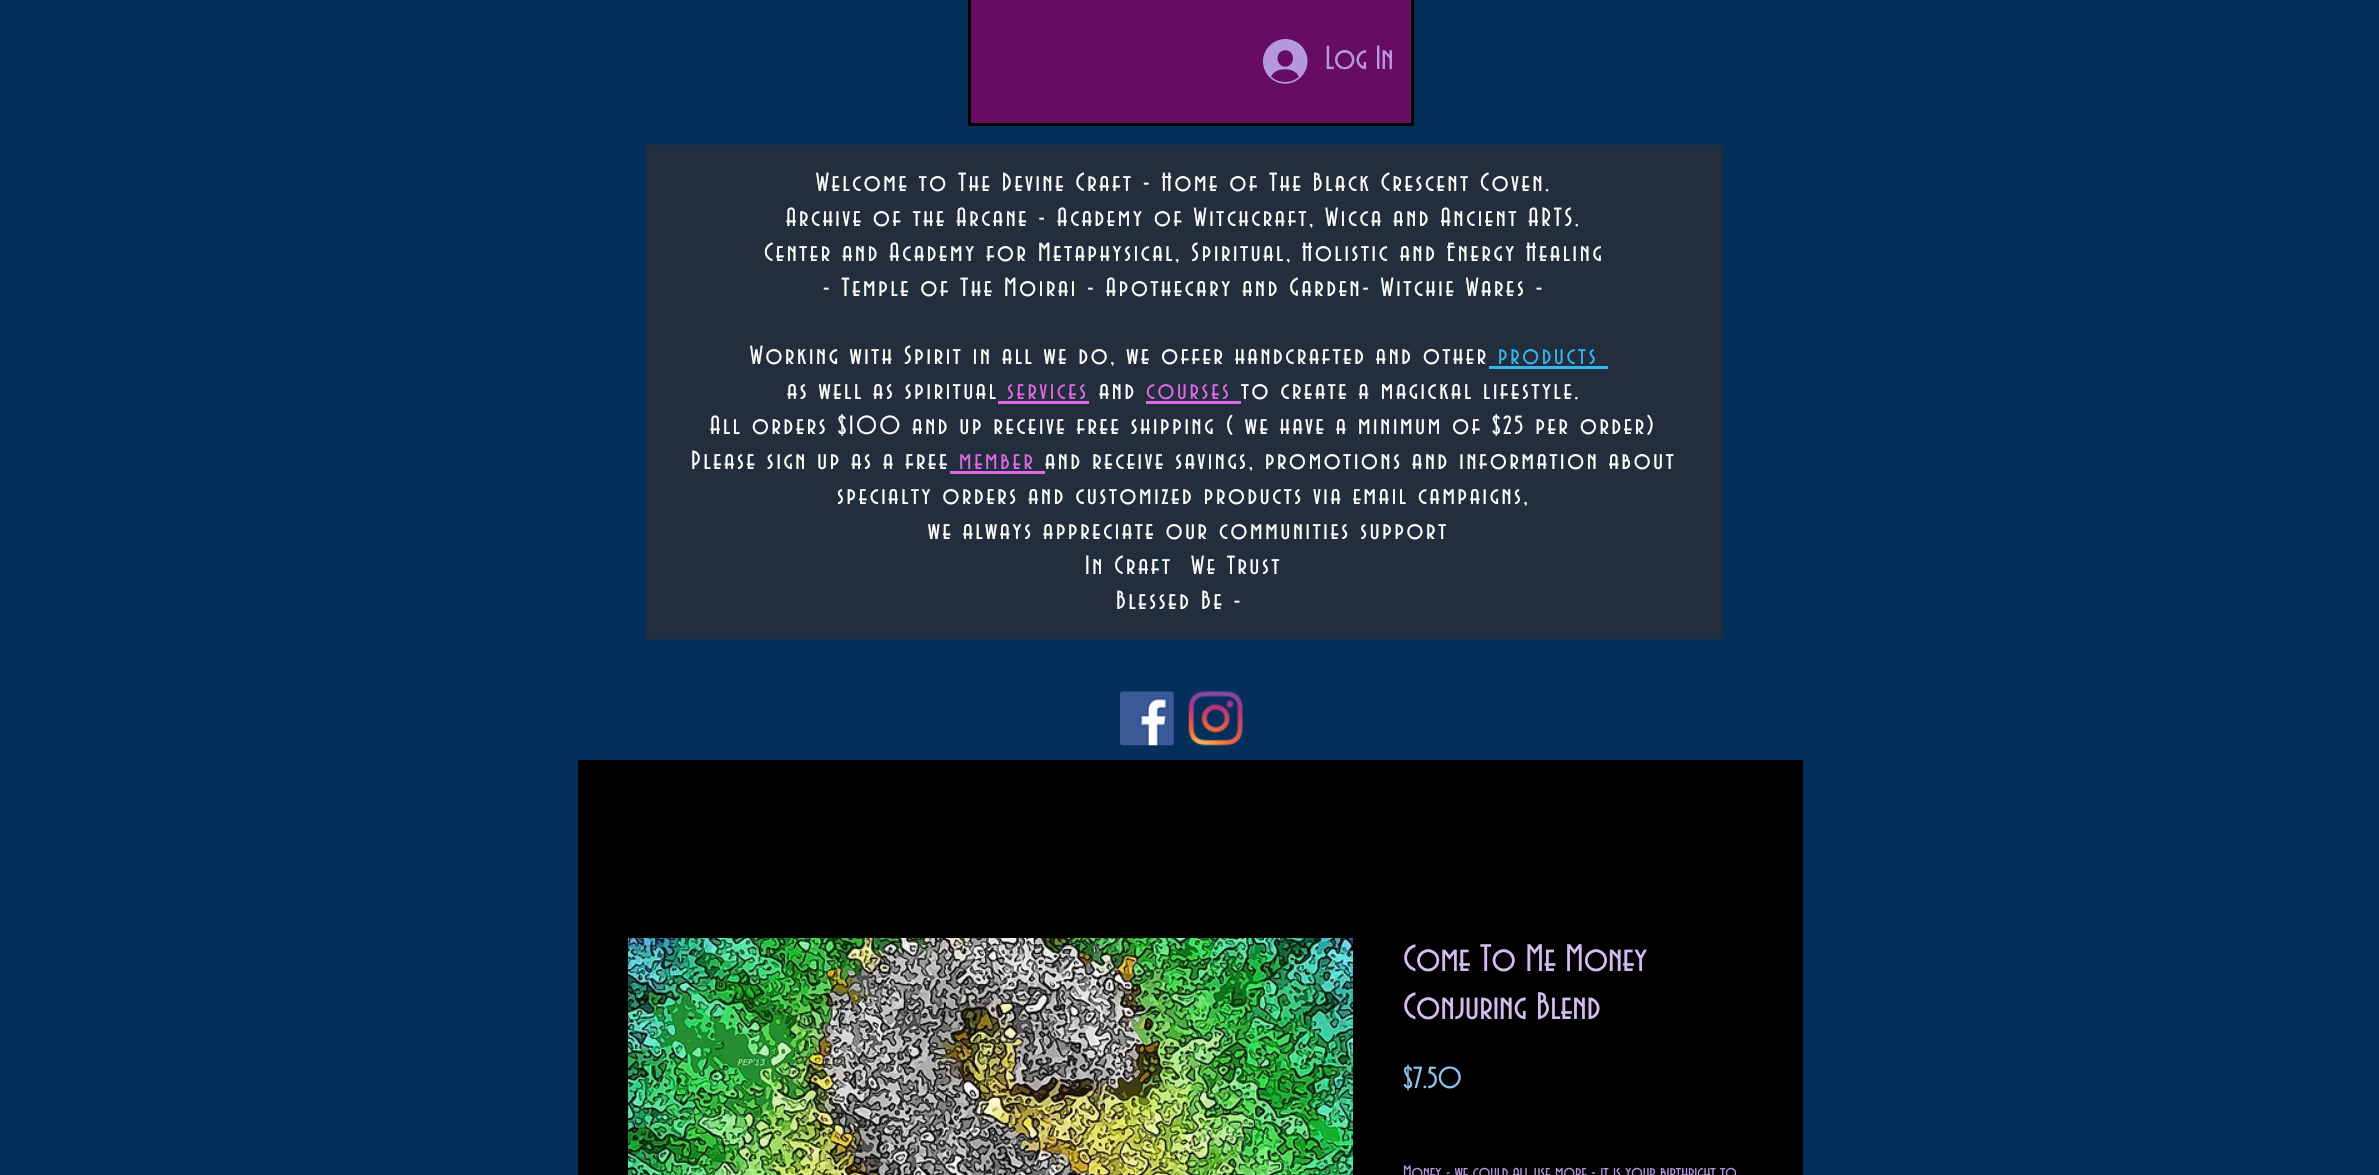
#include "include/core/SkBlurTypes.h"
#include "include/core/SkCanvas.h"
#include "include/core/SkData.h"
#include "include/core/SkFont.h"
#include "include/core/SkFontMgr.h"
#include "include/core/SkImage.h"
#include "include/core/SkMaskFilter.h"
#include "include/core/SkPaint.h"
#include "include/core/SkPathBuilder.h"
#include "include/core/SkTextBlob.h"
#include "include/effects/SkDashPathEffect.h"
#include "include/effects/SkGradientShader.h"
#include "include/utils/SkParsePath.h"

extern sk_sp<SkFontMgr> fontMgr;

void draw(SkCanvas* canvas) {
    SkPaint p;
    p.setAntiAlias(true);
    auto font = [&](const char* family, int weight, float size, bool italic = false) {
        SkFontStyle style(weight, SkFontStyle::kNormal_Width,
            italic ? SkFontStyle::kItalic_Slant : SkFontStyle::kUpright_Slant);
        SkFont result(fontMgr->matchFamilyStyle(family, style), size);
        result.setSubpixel(true);
        return result;
    };
    auto drawTracked = [&](const char* s, float x, float y, const SkFont& font, const SkPaint& ink, float letter, float word) {
        std::vector<SkGlyphID> glyphs(font.countText(s, strlen(s), SkTextEncoding::kUTF8));
        std::vector<float> xs(glyphs.size());
        font.textToGlyphs(s, strlen(s), SkTextEncoding::kUTF8, glyphs);
        font.getXPos(glyphs, xs, x);
        float extra = 0;
        for (size_t i = 0; i < glyphs.size(); i++) {
            xs[i] += extra;
            extra += letter + word * (glyphs[i] == font.unicharToGlyph(' '));
        }
        canvas->drawTextBlob(SkTextBlob::MakeFromPosHGlyphs(glyphs, xs, y, font), 0, 0, ink);
    };
    auto drawPhoto = [&](const char* path, float l, float t, float r, float b) {
        auto image = SkImages::DeferredFromEncodedData(SkData::MakeFromFileName(path));
        canvas->drawImageRect(image, SkRect::MakeLTRB(l, t, r, b), SkSamplingOptions());
    };
    canvas->clear(0xFF052F5B);
    p.setColor(0xFF660C63);
    canvas->drawRect(SkRect::MakeLTRB(969.5f, -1.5f, 1412.5f, 124.5f), p);
    p.setStyle(SkPaint::kStroke_Style);
    p.setStrokeWidth(3);
    p.setColor(0xFF000000);
    canvas->drawRect(SkRect::MakeLTRB(969.5f, -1.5f, 1412.5f, 124.5f), p);
    drawPhoto("media/1.png", 1263, 39, 1308, 84);
    auto font1 = font("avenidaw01", 400, 35);
    p.setStyle(SkPaint::kFill_Style);
    p.setColor(0xFFB698E0);
    canvas->drawString("Log In", 1325, 69, font1, p);
    p.setColor(0xFF222E3C);
    canvas->drawRect(SkRect::MakeLTRB(646, 145, 1723, 639), p);
    auto font2 = font("avenidaw01", 400, 27.5f);
    p.setColor(0xFFFFFFFF);
    {
        const struct { const char* s; float x, y; } items[] = {
            {"Welcome to The Devine Craft - Home of The Black Crescent Coven.", 816, 191},
            {"Archive of the Arcane - Academy of Witchcraft, Wicca and Ancient ARTS.", 786, 226},
            {"Center and Academy for Metaphysical, Spiritual, Holistic and Energy Healing", 764, 261},
            {"- Temple of The Moirai - Apothecary and Garden- Witchie Wares -", 823, 296},
            {"Working with Spirit in all we do, we offer handcrafted and other", 750, 364},
        };
        for (auto [s, x, y] : items) {
            drawTracked(s, x, y, font2, p, 2.75f, 0);
        }
    }
    p.setColor(0xFF3AB3F3);
    drawTracked("products", 1498, 364, font2, p, 2.75f, 0);
    canvas->drawRect(SkRect::MakeLTRB(1489, 366, 1608, 369), p);
    p.setColor(0xFFFFFFFF);
    drawTracked("as well as spiritual", 787, 399, font2, p, 2.75f, 0);
    p.setColor(0xFFDF68EA);
    drawTracked("services", 1007, 399, font2, p, 2.75f, 0);
    canvas->drawRect(SkRect::MakeLTRB(998, 401, 1089, 404), p);
    p.setColor(0xFFFFFFFF);
    drawTracked("and", 1099, 399, font2, p, 2.75f, 0);
    p.setColor(0xFFDF68EA);
    drawTracked("courses", 1146, 399, font2, p, 2.75f, 0);
    canvas->drawRect(SkRect::MakeLTRB(1146, 401, 1241, 404), p);
    p.setColor(0xFFFFFFFF);
    {
        const struct { const char* s; float x, y; } items[] = {
            {"to create a magickal lifestyle.", 1241, 399},
            {"All orders $100 and up receive free shipping ( we have a minimum of $25 per order)", 710, 434},
            {"Please sign up as a free", 691, 469},
        };
        for (auto [s, x, y] : items) {
            drawTracked(s, x, y, font2, p, 2.75f, 0);
        }
    }
    p.setColor(0xFFDF68EA);
    drawTracked("member", 959, 469, font2, p, 2.75f, 0);
    p.setColor(0xFFFFFFFF);
    drawTracked("and receive savings, promotions and information about", 1045, 469, font2, p, 2.75f, 0);
    p.setColor(0xFFDF68EA);
    canvas->drawRect(SkRect::MakeLTRB(950, 471, 1045, 474), p);
    p.setColor(0xFFFFFFFF);
    {
        const struct { const char* s; float x, y; } items[] = {
            {"specialty orders and customized products via email campaigns,", 837, 504},
            {"we always appreciate our communities support", 928, 539},
            {"In Craft  We Trust", 1085, 574},
            {"Blessed Be -", 1116, 609},
        };
        for (auto [s, x, y] : items) {
            drawTracked(s, x, y, font2, p, 2.75f, 0);
        }
    }
    drawPhoto("media/2.png", 1120, 691, 1174, 746);
    drawPhoto("media/3.png", 1188, 691, 1243, 746);
    p.setColor(0xFF000000);
    canvas->drawRect(SkRect::MakeLTRB(578, 760, 1803, 1175), p);
    drawPhoto("media/4.png", 628, 938, 1353, 1175);
    auto font3 = font("avenidaw01", 400, 40);
    p.setColor(0xFFD2BCF0);
    canvas->drawString("Come To Me Money", 1403, 971, font3, p);
    canvas->drawString("Conjuring Blend", 1403, 1019, font3, p);
    auto font4 = font("avenidaw01", 400, 32);
    p.setColor(0xFF90C0EC);
    canvas->drawString("$7.50", 1403, 1088, font4, p);
    auto font5 = font("avenidaw01", 400, 18.75f);
    p.setColor(0xFFB698E0);
    canvas->drawString("Money - we could all use more - it is your birthright to", 1403, 1178, font5, p);
}
